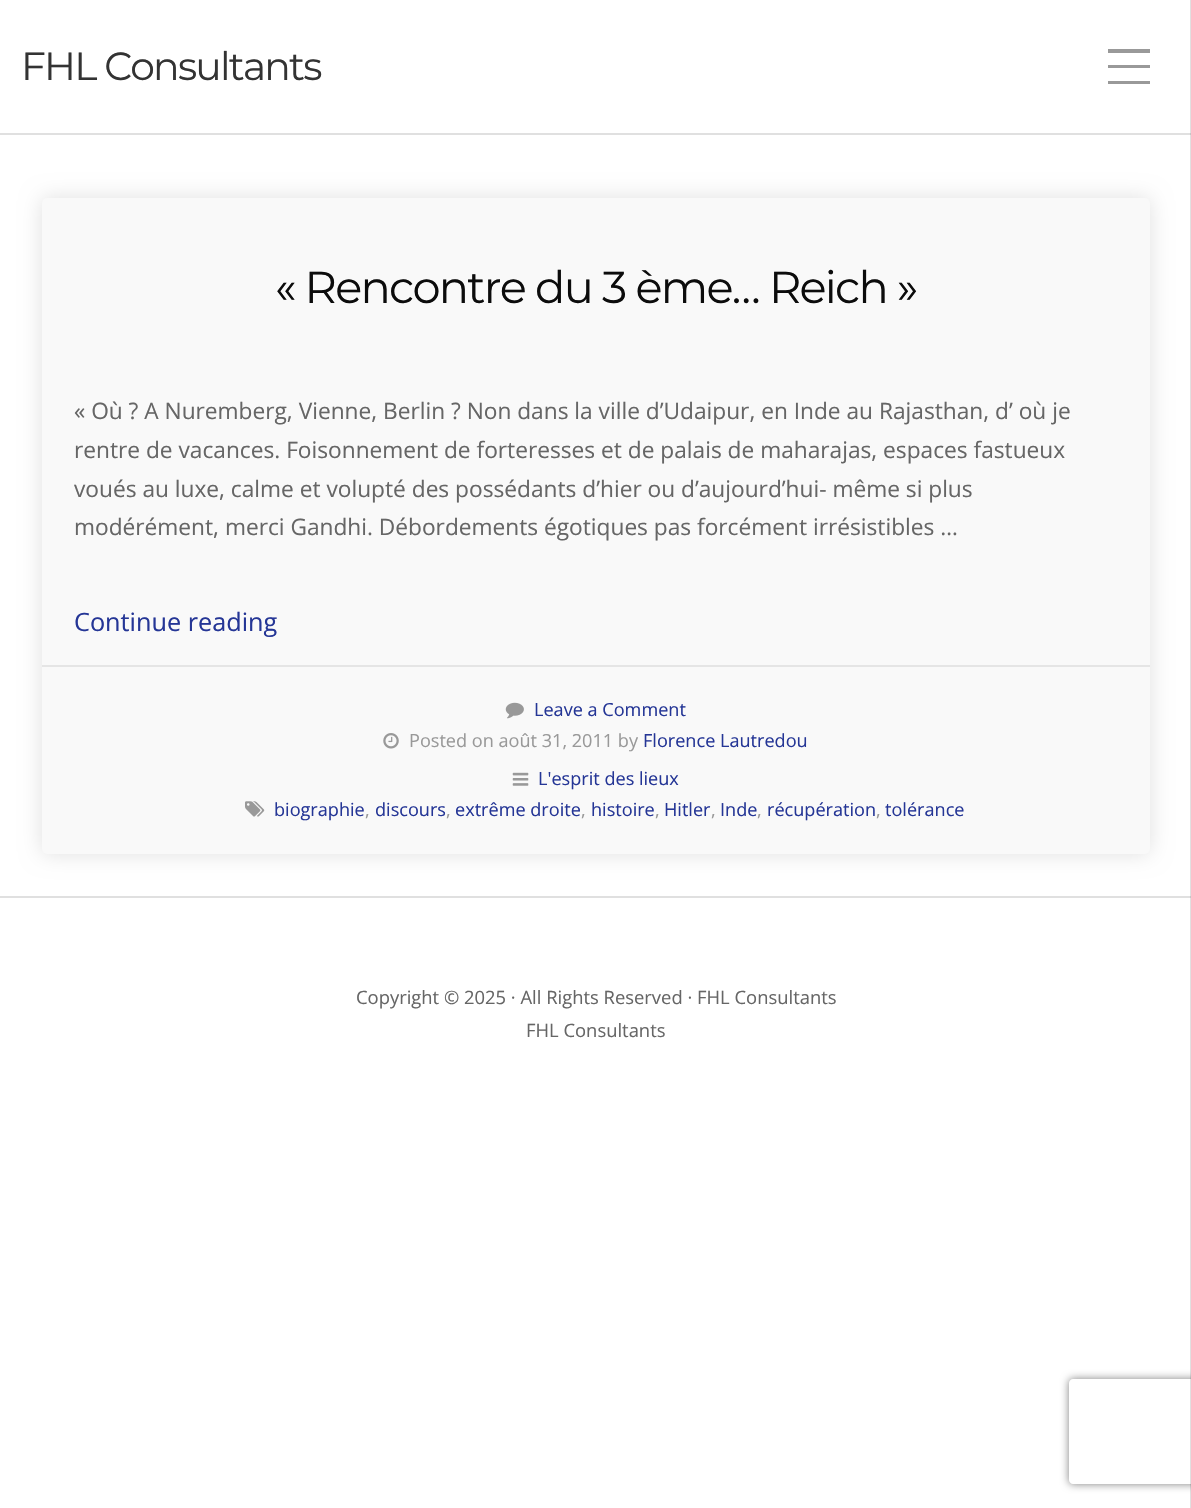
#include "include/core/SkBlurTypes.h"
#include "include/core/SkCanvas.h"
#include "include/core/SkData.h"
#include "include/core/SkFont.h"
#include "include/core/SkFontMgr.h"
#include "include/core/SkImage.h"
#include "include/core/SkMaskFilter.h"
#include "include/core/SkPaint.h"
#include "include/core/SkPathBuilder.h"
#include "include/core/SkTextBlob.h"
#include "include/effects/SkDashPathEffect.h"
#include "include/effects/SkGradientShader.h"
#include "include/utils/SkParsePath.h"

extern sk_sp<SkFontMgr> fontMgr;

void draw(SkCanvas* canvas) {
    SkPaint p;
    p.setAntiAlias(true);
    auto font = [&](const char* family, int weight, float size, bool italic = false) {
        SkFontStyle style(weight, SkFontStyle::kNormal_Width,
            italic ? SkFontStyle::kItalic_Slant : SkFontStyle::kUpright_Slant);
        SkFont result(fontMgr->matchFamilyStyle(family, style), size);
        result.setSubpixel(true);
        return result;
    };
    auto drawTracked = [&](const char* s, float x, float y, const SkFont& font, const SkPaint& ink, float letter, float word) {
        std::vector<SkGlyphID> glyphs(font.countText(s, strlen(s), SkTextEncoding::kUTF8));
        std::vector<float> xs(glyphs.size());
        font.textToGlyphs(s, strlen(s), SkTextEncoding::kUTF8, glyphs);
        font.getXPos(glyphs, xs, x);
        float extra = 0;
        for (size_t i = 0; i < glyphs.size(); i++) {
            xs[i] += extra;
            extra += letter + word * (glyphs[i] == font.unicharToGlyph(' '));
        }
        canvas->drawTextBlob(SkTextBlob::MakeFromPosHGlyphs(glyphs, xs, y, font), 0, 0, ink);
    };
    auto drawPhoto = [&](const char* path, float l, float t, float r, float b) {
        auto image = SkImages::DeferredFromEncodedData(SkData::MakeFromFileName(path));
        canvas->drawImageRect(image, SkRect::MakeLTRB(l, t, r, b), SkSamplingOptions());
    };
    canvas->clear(0xFFFFFFFF);
    p.setColor(0xFFE0E0E0);
    canvas->drawRect(SkRect::MakeLTRB(0, 133, 1191, 135), p);
    auto font1 = font("Montserrat", 400, 39.25f);
    p.setColor(0xFF333333);
    drawTracked("FHL Consultants", 21, 80, font1, p, -1.75f, 0);
    {
        const struct { float l, t, r, b; SkColor color; } items[] = {
            {1108, 49, 1150, 53, 0xFF999999},
            {1108, 65, 1150, 68, 0xFF999999},
            {1108, 81, 1150, 84, 0xFF999999},
        };
        for (auto [l, t, r, b, color] : items) {
            p.setColor(color);
            canvas->drawRect(SkRect::MakeLTRB(l, t, r, b), p);
        }
    }
    p.setColor(0x1F000000);
    p.setMaskFilter(SkMaskFilter::MakeBlur(kNormal_SkBlurStyle, 10.5f));
    canvas->drawRoundRect(SkRect::MakeLTRB(42, 198, 1150, 854), 5, 5, p);
    p.setMaskFilter(nullptr);
    p.setColor(0xFFF9F9F9);
    canvas->drawRoundRect(SkRect::MakeLTRB(42, 198, 1150, 854), 5, 5, p);
    auto font2 = font("Montserrat", 400, 44.75f);
    p.setColor(0xFF0C0C0C);
    drawTracked("« Rencontre du 3 ème… Reich »", 275, 303, font2, p, -1.75f, 0);
    auto font3 = font("Open Sans", 400, 22.7f);
    p.setColor(0xFF666666);
    {
        const struct { const char* s; float x, y; } items[] = {
            {"« Où ? A Nuremberg, Vienne, Berlin ? Non dans la ville d’Udaipur, en Inde au Rajasthan, d’ où je", 74, 419},
            {"rentre de vacances. Foisonnement de forteresses et de palais de maharajas, espaces fastueux", 74, 458},
            {"voués au luxe, calme et volupté des possédants d’hier ou d’aujourd’hui- même si plus", 74, 497},
            {"modérément, merci Gandhi. Débordements égotiques pas forcément irrésistibles …", 74, 535},
        };
        for (auto [s, x, y] : items) {
            canvas->drawString(s, x, y, font3, p);
        }
    }
    auto font4 = font("Open Sans", 400, 25.25f);
    p.setColor(0xFF253696);
    canvas->drawString("Continue reading", 74, 631, font4, p);
    p.setColor(0xFFE5E5E5);
    canvas->drawRect(SkRect::MakeLTRB(42, 665, 1150, 667), p);
    drawPhoto("media/1.png", 505, 702, 524, 719);
    auto font5 = font("Open Sans", 400, 18.1f);
    p.setColor(0xFF253696);
    canvas->drawString("Leave a Comment", 534, 716, font5, p);
    drawPhoto("media/2.png", 383, 733, 399, 749);
    p.setColor(0xFF999999);
    canvas->drawString("Posted on août 31, 2011 by", 409, 747, font5, p);
    p.setColor(0xFF253696);
    canvas->drawString("Florence Lautredou", 643, 747, font5, p);
    drawPhoto("media/3.png", 512, 772, 529, 786);
    canvas->drawString("L'esprit des lieux", 538, 785, font5, p);
    drawPhoto("media/4.png", 245, 801, 265, 817);
    canvas->drawString("biographie", 274, 816, font5, p);
    p.setColor(0xFF999999);
    canvas->drawString(",", 365, 816, font5, p);
    p.setColor(0xFF253696);
    canvas->drawString("discours", 375, 816, font5, p);
    p.setColor(0xFF999999);
    canvas->drawString(",", 446, 816, font5, p);
    p.setColor(0xFF253696);
    canvas->drawString("extrême droite", 455, 816, font5, p);
    p.setColor(0xFF999999);
    canvas->drawString(",", 581, 816, font5, p);
    p.setColor(0xFF253696);
    canvas->drawString("histoire", 591, 816, font5, p);
    p.setColor(0xFF999999);
    canvas->drawString(",", 655, 816, font5, p);
    p.setColor(0xFF253696);
    canvas->drawString("Hitler", 664, 816, font5, p);
    p.setColor(0xFF999999);
    canvas->drawString(",", 711, 816, font5, p);
    p.setColor(0xFF253696);
    canvas->drawString("Inde", 720, 816, font5, p);
    p.setColor(0xFF999999);
    canvas->drawString(",", 757, 816, font5, p);
    p.setColor(0xFF253696);
    canvas->drawString("récupération", 767, 816, font5, p);
    p.setColor(0xFF999999);
    canvas->drawString(",", 876, 816, font5, p);
    p.setColor(0xFF253696);
    canvas->drawString("tolérance", 885, 816, font5, p);
    p.setColor(0xFFE0E0E0);
    canvas->drawRect(SkRect::MakeLTRB(0, 896, 1191, 898), p);
    auto font6 = font("Open Sans", 400, 18.4f);
    p.setColor(0xFF666666);
    canvas->drawString("Copyright © 2025 · All Rights Reserved · FHL Consultants", 356, 1004, font6, p);
    canvas->drawString("FHL Consultants", 526, 1037, font6, p);
    canvas->save();
    canvas->clipPath(SkPathBuilder(SkPathFillType::kEvenOdd).moveTo(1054, 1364).lineTo(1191, 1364).lineTo(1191, 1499).lineTo(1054, 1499).close().moveTo(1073, 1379).lineTo(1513, 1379).cubicTo(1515, 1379, 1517, 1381, 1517, 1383).lineTo(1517, 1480).cubicTo(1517, 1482, 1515, 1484, 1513, 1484).lineTo(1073, 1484).cubicTo(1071, 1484, 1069, 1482, 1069, 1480).lineTo(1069, 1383).cubicTo(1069, 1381, 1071, 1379, 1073, 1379).close().detach(), true);
    p.setColor(0xFF808080);
    p.setMaskFilter(SkMaskFilter::MakeBlur(kNormal_SkBlurStyle, 4.5f));
    canvas->drawRoundRect(SkRect::MakeLTRB(1069, 1379, 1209, 1484), 4, 4, p);
    p.setMaskFilter(nullptr);
    canvas->restore();
    p.setColor(0x1F000000);
    canvas->drawRect(SkRect::MakeLTRB(1190, 0, 1191, 1508), p);
}
